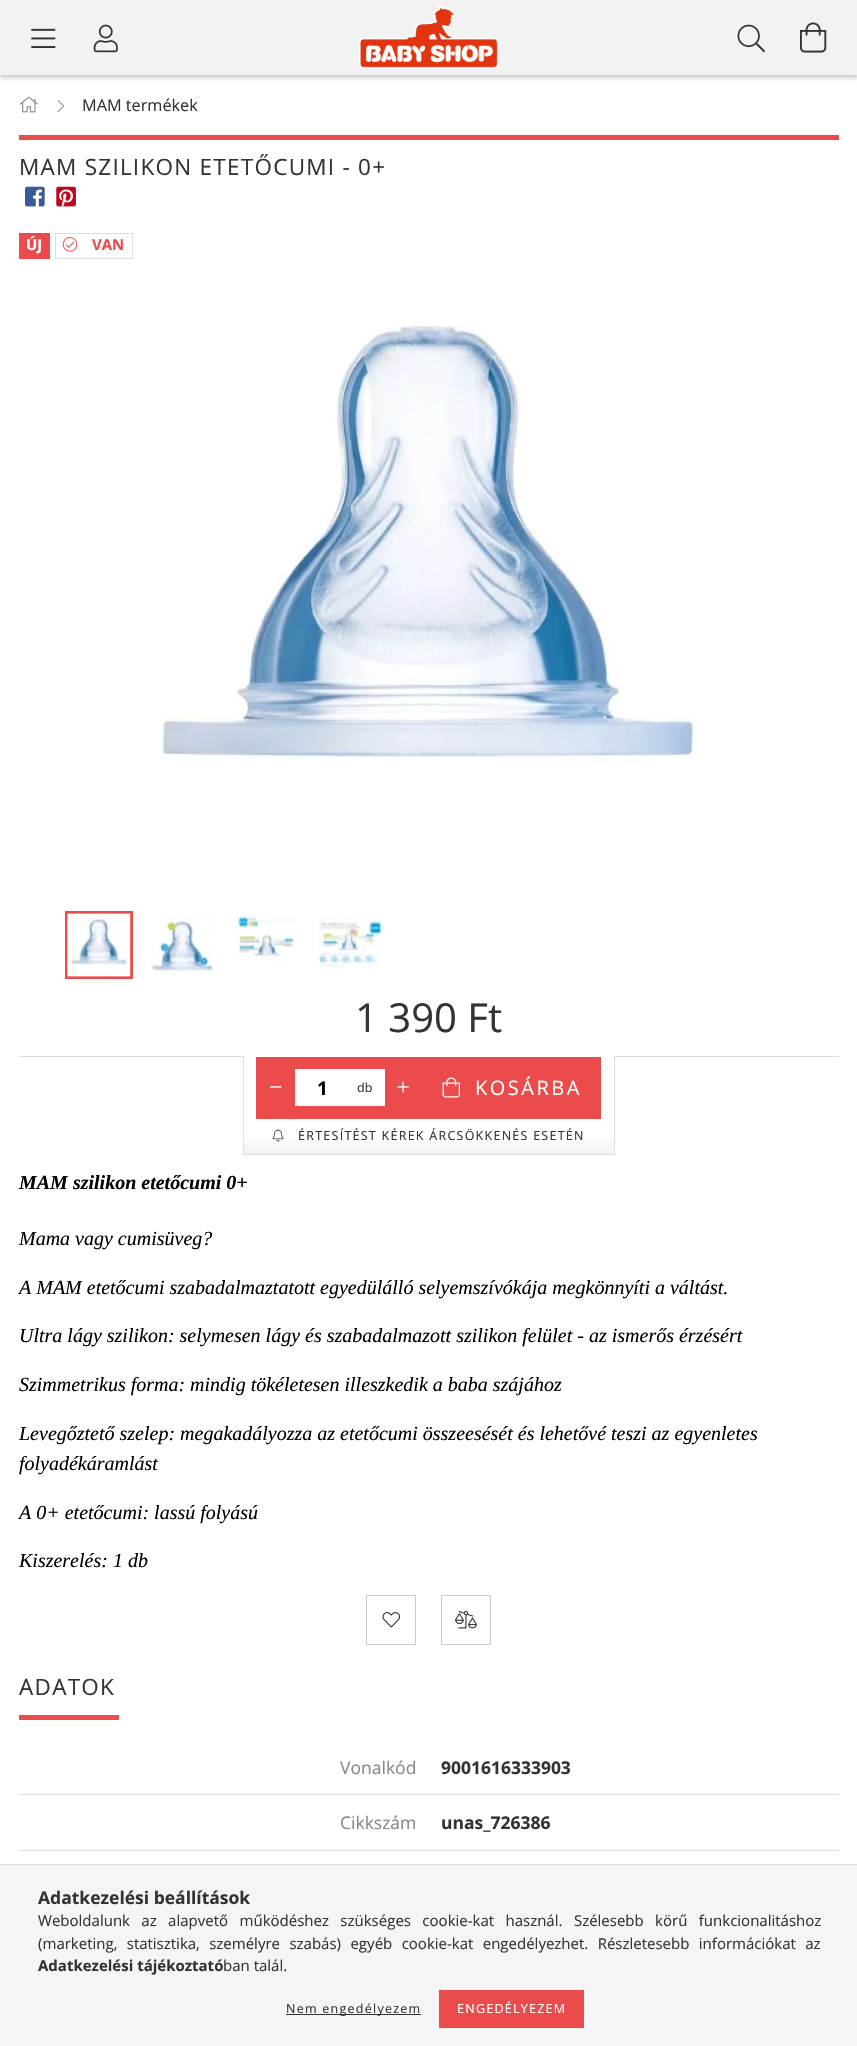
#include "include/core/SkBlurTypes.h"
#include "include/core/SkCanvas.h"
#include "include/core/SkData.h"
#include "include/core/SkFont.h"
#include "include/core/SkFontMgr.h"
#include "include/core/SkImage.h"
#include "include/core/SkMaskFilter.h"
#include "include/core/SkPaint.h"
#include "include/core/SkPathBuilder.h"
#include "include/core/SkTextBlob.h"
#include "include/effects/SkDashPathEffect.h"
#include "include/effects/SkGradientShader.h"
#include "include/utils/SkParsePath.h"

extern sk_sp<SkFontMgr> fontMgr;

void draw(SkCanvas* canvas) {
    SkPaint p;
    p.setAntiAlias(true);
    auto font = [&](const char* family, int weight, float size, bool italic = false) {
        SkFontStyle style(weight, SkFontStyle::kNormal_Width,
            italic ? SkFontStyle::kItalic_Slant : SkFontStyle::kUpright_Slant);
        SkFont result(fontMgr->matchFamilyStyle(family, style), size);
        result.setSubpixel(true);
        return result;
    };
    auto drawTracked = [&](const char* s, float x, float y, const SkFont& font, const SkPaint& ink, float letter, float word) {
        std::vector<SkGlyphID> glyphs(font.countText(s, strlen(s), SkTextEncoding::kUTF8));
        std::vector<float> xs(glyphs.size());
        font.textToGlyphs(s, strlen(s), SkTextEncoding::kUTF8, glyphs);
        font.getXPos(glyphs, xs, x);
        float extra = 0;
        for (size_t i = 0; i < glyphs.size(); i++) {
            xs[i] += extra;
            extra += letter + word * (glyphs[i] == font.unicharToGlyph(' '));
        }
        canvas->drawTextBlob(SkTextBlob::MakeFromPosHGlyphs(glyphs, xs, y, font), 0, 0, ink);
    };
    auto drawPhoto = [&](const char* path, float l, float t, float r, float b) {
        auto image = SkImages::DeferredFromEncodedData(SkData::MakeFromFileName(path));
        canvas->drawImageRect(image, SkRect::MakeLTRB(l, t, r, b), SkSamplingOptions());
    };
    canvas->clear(0xFFFFFFFF);
    p.setColor(0x33000000);
    p.setMaskFilter(SkMaskFilter::MakeBlur(kNormal_SkBlurStyle, 2));
    canvas->drawRect(SkRect::MakeLTRB(0, 3, 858, 78), p);
    p.setMaskFilter(nullptr);
    p.setColor(0xFFF2F2F2);
    canvas->drawRect(SkRect::MakeLTRB(0, 0, 857, 75), p);
    drawPhoto("media/1.png", 31, 28, 56, 48);
    drawPhoto("media/2.png", 93, 24, 118, 53);
    drawPhoto("media/3.png", 359, 6, 499, 69);
    drawPhoto("media/4.png", 737, 24, 765, 53);
    drawPhoto("media/5.png", 800, 22, 827, 53);
    drawPhoto("media/6.png", 19, 96, 38, 113);
    drawPhoto("media/7.png", 57, 100, 65, 112);
    auto font1 = font("Open Sans", 400, 16.25f);
    p.setColor(0xFF333333);
    canvas->drawString("MAM termékek", 82, 111, font1, p);
    p.setColor(0xFFEC4B4B);
    canvas->drawRect(SkRect::MakeLTRB(19, 135, 839, 140), p);
    auto font2 = font("Open Sans", 400, 22.5f);
    p.setColor(0xFF333333);
    drawTracked("MAM SZILIKON ETETŐCUMI - 0+", 19, 175, font2, p, 1.25f, 0);
    drawPhoto("media/8.png", 25, 186, 45, 207);
    drawPhoto("media/9.png", 56, 186, 76, 207);
    p.setColor(0xFFEC4B4B);
    canvas->drawRect(SkRect::MakeLTRB(19, 233, 50, 259), p);
    auto font3 = font("Open Sans", 700, 15);
    p.setColor(0xFFFFFFFF);
    canvas->drawString("ÚJ", 26, 250, font3, p);
    p.setStyle(SkPaint::kStroke_Style);
    p.setStrokeWidth(1);
    p.setColor(0xFFDDDDDD);
    canvas->drawRect(SkRect::MakeLTRB(55.5f, 233.5f, 132.5f, 258.5f), p);
    drawPhoto("media/10.png", 62, 237, 78, 252);
    p.setStyle(SkPaint::kFill_Style);
    p.setColor(0xFFEC4B4B);
    canvas->drawString("VAN", 92, 250, font3, p);
    drawPhoto("media/11.png", 162, 323, 694, 759);
    p.setStyle(SkPaint::kStroke_Style);
    p.setStrokeWidth(3);
    canvas->drawRect(SkRect::MakeLTRB(66.5f, 912.5f, 131.5f, 977.5f), p);
    drawPhoto("media/12.png", 67, 913, 131, 977);
    drawPhoto("media/13.png", 151, 914, 213, 974);
    drawPhoto("media/14.png", 235, 913, 297, 963);
    drawPhoto("media/15.png", 318, 914, 382, 969);
    auto font4 = font("Open Sans", 400, 40);
    p.setStyle(SkPaint::kFill_Style);
    p.setColor(0xFF333333);
    canvas->drawString("1 390 Ft", 355, 1032, font4, p);
    p.setColor(0xFFDDDDDD);
    canvas->drawRect(SkRect::MakeLTRB(19, 1056, 839, 1057), p);
    {
        const SkColor colors[] = {0xFFF1F1F1, 0x00F1F1F1, 0x00FFFFFF};
        const float stops[] = {0, 0.19f, 1};
        const SkPoint ends[] = {{429, 1154}, {429, 1056}};
        p.setShader(SkGradientShader::MakeLinear(ends, colors, stops, 3, SkTileMode::kClamp));
        p.setAlpha(255);
    }
    canvas->drawRect(SkRect::MakeLTRB(244, 1138, 614, 1154), p);
    p.setShader(nullptr);
    {
        const struct { float l, t, r, b; SkColor color; } items[] = {
            {614, 1056, 615, 1155, 0xFFDDDDDD},
            {243, 1154, 615, 1155, 0xFFDDDDDD},
            {243, 1056, 244, 1155, 0xFFDDDDDD},
            {244, 1056, 614, 1057, 0xFFFFFFFF},
            {256, 1057, 601, 1119, 0xFFEC4B4B},
        };
        for (auto [l, t, r, b, color] : items) {
            p.setColor(color);
            canvas->drawRect(SkRect::MakeLTRB(l, t, r, b), p);
        }
    }
    drawPhoto("media/16.png", 270, 1086, 282, 1088);
    p.setColor(0xFFFFFFFF);
    canvas->drawRect(SkRect::MakeLTRB(295, 1069, 385, 1106), p);
    auto font5 = font("Open Sans", 700, 19);
    p.setColor(0xFF000000);
    canvas->drawString("1", 317, 1095, font5, p);
    auto font6 = font("Open Sans", 400, 12.5f);
    p.setColor(0xFF333333);
    canvas->drawString("db", 357, 1092, font6, p);
    drawPhoto("media/17.png", 397, 1081, 409, 1093);
    drawPhoto("media/18.png", 442, 1077, 460, 1098);
    auto font7 = font("Open Sans", 400, 20);
    p.setColor(0xFFFFFFFF);
    drawTracked("KOSÁRBA", 475, 1095, font7, p, 2.5f, 0);
    drawPhoto("media/19.png", 272, 1129, 284, 1142);
    p.setColor(0xFF333333);
    drawTracked("ÉRTESÍTÉST KÉREK ÁRCSÖKKENÉS ESETÉN", 298, 1140, font6, p, 1.25f, 0);
    auto font8 = font("Liberation Serif", 700, 20, true);
    p.setColor(0xFF000000);
    canvas->drawString("MAM szilikon etetőcumi 0+", 19, 1189, font8, p);
    auto font9 = font("Liberation Serif", 400, 20, true);
    {
        const struct { const char* s; float x, y; } items[] = {
            {"Mama vagy cumisüveg?", 19, 1245},
            {"A MAM etetőcumi szabadalmaztatott egyedülálló selyemszívókája megkönnyíti a váltást.", 19, 1294},
            {"Ultra lágy szilikon: selymesen lágy és szabadalmazott szilikon felület - az ismerős érzésért", 19, 1342},
            {"Szimmetrikus forma: mindig tökéletesen illeszkedik a baba szájához", 19, 1391},
            {"Levegőztető szelep: megakadályozza az etetőcumi összeesését és lehetővé teszi az egyenletes", 19, 1440},
            {"folyadékáramlást", 19, 1470},
            {"A 0+ etetőcumi: lassú folyású", 19, 1519},
            {"Kiszerelés: 1 db", 19, 1567},
        };
        for (auto [s, x, y] : items) {
            canvas->drawString(s, x, y, font9, p);
        }
    }
    p.setStyle(SkPaint::kStroke_Style);
    p.setStrokeWidth(1);
    p.setColor(0xFFCCCCCC);
    canvas->drawRect(SkRect::MakeLTRB(366.5f, 1595.5f, 415.5f, 1644.5f), p);
    drawPhoto("media/20.png", 382, 1612, 400, 1628);
    canvas->drawRect(SkRect::MakeLTRB(441.5f, 1595.5f, 490.5f, 1644.5f), p);
    drawPhoto("media/21.png", 455, 1611, 477, 1629);
    p.setStyle(SkPaint::kFill_Style);
    p.setColor(0xFF333333);
    drawTracked("ADATOK", 19, 1695, font2, p, 1.25f, 0);
    p.setColor(0xFFEC4B4B);
    canvas->drawRect(SkRect::MakeLTRB(19, 1715, 119, 1720), p);
    auto font10 = font("Open Sans", 400, 17.5f);
    p.setColor(0xFF888888);
    canvas->drawString("Vonalkód", 340, 1774, font10, p);
    auto font11 = font("Open Sans", 700, 17.5f);
    p.setColor(0xFF333333);
    canvas->drawString("9001616333903", 441, 1774, font11, p);
    p.setColor(0xFFDDDDDD);
    canvas->drawRect(SkRect::MakeLTRB(19, 1794, 839, 1795), p);
    p.setColor(0xFF888888);
    canvas->drawString("Cikkszám", 340, 1829, font10, p);
    p.setColor(0xFF333333);
    canvas->drawString("unas_726386", 441, 1829, font11, p);
    {
        const struct { float l, t, r, b; SkColor color; } items[] = {
            {19, 1850, 839, 1851, 0xFFDDDDDD},
            {0, 1865, 857, 2046, 0xFFF5F5F5},
            {0, 1864, 857, 1865, 0xFFDDDDDD},
        };
        for (auto [l, t, r, b, color] : items) {
            p.setColor(color);
            canvas->drawRect(SkRect::MakeLTRB(l, t, r, b), p);
        }
    }
    p.setColor(0xFF333333);
    canvas->drawString("Adatkezelési beállítások", 38, 1904, font11, p);
    auto font12 = font("Open Sans", 400, 15);
    drawTracked("Weboldalunk az alapvető működéshez szükséges cookie-kat használ. Szélesebb körű funkcionalitáshoz", 38, 1926, font12, p, 0, 7.5f);
    drawTracked("(marketing, statisztika, személyre szabás) egyéb cookie-kat engedélyezhet. Részletesebb információkat az", 38, 1949, font12, p, 0, 5.5f);
    canvas->drawString("Adatkezelési tájékoztató", 38, 1971, font3, p);
    canvas->drawString("ban talál.", 223, 1971, font12, p);
    canvas->drawRect(SkRect::MakeLTRB(286, 2014, 421, 2015), p);
    drawTracked("Nem engedélyezem", 286, 2013, font6, p, 1.25f, 0);
    p.setColor(0xFFEC4B4B);
    canvas->drawRect(SkRect::MakeLTRB(439, 1990, 584, 2028), p);
    p.setColor(0xFFFFFFFF);
    drawTracked("ENGEDÉLYEZEM", 457, 2013, font6, p, 1.25f, 0);
}
